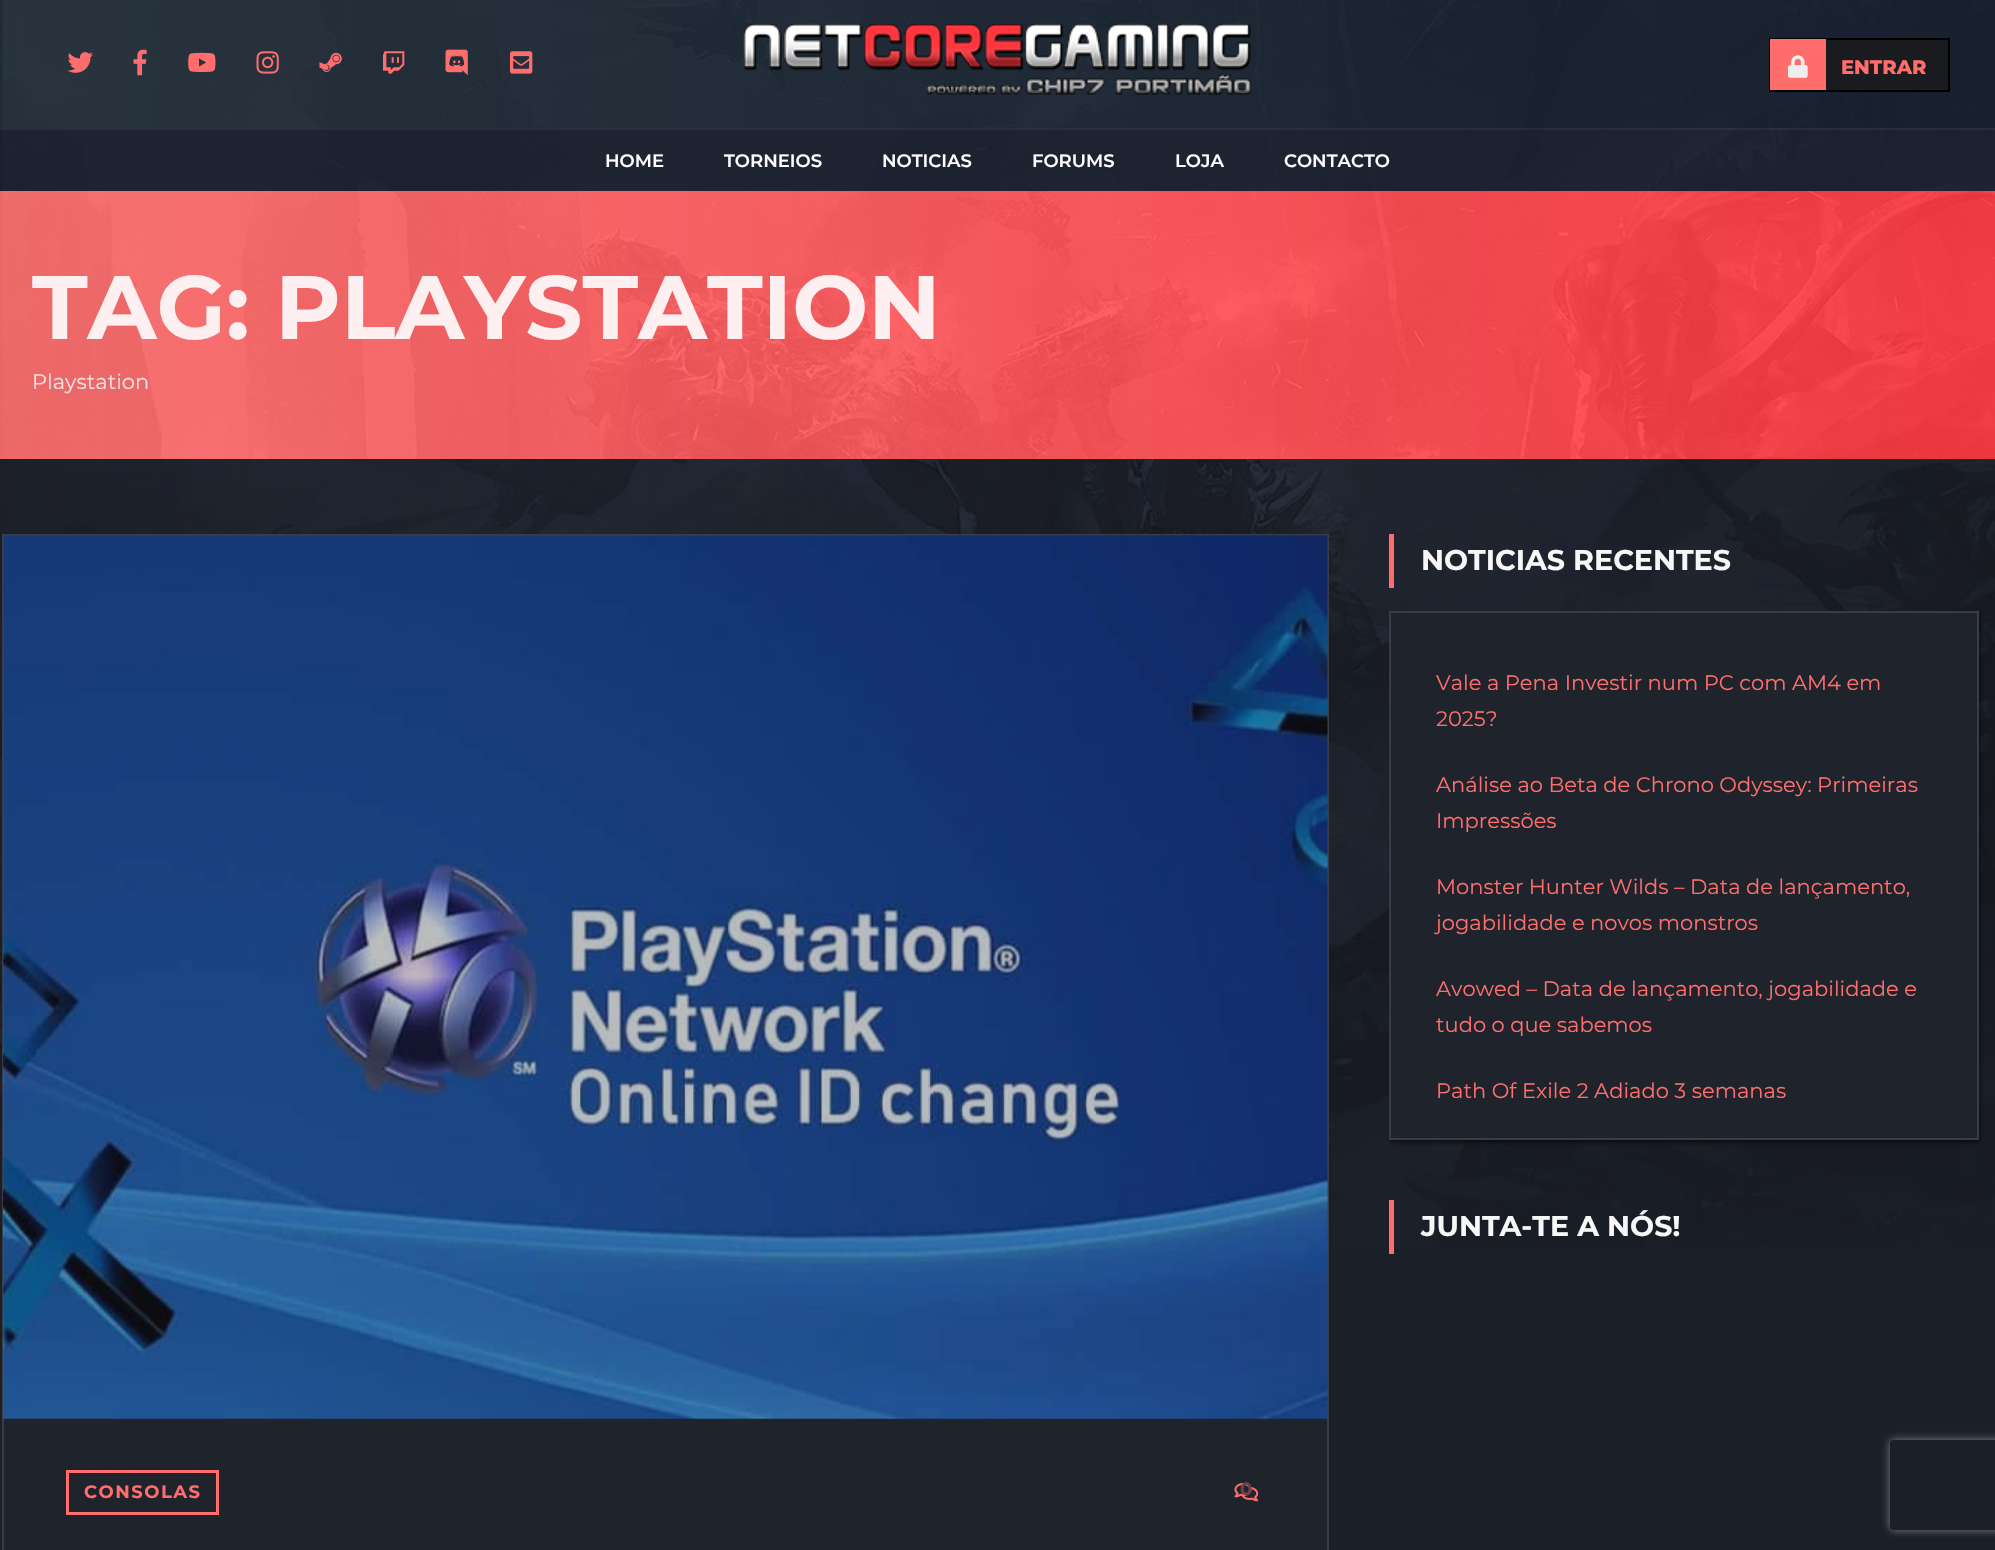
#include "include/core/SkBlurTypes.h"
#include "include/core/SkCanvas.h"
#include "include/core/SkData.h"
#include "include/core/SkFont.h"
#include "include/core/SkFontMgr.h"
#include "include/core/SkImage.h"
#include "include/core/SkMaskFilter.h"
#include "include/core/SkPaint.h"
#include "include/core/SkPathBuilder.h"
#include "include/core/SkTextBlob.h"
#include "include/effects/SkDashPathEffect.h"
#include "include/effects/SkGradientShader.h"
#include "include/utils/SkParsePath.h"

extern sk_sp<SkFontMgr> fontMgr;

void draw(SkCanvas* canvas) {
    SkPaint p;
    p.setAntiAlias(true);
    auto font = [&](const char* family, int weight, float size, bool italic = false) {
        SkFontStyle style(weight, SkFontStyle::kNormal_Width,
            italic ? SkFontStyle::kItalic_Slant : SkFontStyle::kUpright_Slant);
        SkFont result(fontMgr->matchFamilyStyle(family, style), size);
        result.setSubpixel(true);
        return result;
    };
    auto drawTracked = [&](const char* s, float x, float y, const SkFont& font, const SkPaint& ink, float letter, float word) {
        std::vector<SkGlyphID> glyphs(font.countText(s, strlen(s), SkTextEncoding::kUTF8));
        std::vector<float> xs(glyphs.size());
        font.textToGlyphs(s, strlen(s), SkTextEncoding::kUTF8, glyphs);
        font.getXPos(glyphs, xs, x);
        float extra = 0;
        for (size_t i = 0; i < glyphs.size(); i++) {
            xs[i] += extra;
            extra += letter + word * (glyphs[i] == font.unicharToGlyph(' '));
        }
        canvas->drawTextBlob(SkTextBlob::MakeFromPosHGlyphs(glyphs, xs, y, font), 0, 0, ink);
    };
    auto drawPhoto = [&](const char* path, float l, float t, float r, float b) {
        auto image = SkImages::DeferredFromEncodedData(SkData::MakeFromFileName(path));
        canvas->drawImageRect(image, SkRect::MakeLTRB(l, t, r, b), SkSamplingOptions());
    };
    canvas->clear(0xFF1B1F28);
    drawPhoto("media/1.png", 0, 459, 1995, 1249);
    drawPhoto("media/2.png", 0, 0, 1995, 459);
    drawPhoto("media/3.png", 67, 52, 93, 73);
    drawPhoto("media/4.png", 133, 49, 147, 76);
    drawPhoto("media/5.png", 188, 52, 216, 72);
    drawPhoto("media/6.png", 256, 51, 279, 74);
    drawPhoto("media/7.png", 319, 52, 342, 72);
    drawPhoto("media/8.png", 383, 51, 405, 74);
    drawPhoto("media/9.png", 445, 49, 468, 75);
    drawPhoto("media/10.png", 510, 51, 533, 74);
    drawPhoto("media/11.png", 743, 23, 1251, 95);
    p.setColor(0xFF1A1B1F);
    canvas->drawRect(SkRect::MakeLTRB(1826, 40, 1948, 90), p);
    p.setStyle(SkPaint::kStroke_Style);
    p.setStrokeWidth(2);
    p.setColor(0xFF000000);
    canvas->drawRect(SkRect::MakeLTRB(1770, 39, 1949, 91), p);
    p.setStyle(SkPaint::kFill_Style);
    p.setColor(0xFFFF6D6D);
    canvas->drawRect(SkRect::MakeLTRB(1770, 39, 1826, 90), p);
    drawPhoto("media/12.png", 1788, 55, 1808, 78);
    auto font1 = font("Montserrat", 800, 19.5f);
    canvas->drawString("ENTRAR", 1841, 74, font1, p);
    p.setColor(0xF7191F2D);
    canvas->drawRect(SkRect::MakeLTRB(0, 128, 1995, 191), p);
    p.setColor(0x0DEEEEEE);
    canvas->drawRect(SkRect::MakeLTRB(0, 128, 1995, 130), p);
    auto font2 = font("Montserrat", 600, 18);
    p.setColor(0xFFFFFFFF);
    {
        const struct { const char* s; float x, y; } items[] = {
            {"HOME", 605, 167},
            {"TORNEIOS", 724, 167},
            {"NOTICIAS", 882, 167},
            {"FORUMS", 1032, 167},
            {"LOJA", 1175, 167},
            {"CONTACTO", 1284, 167},
        };
        for (auto [s, x, y] : items) {
            canvas->drawString(s, x, y, font2, p);
        }
    }
    auto font3 = font("Montserrat", 700, 90);
    p.setColor(0xFFFEF0F0);
    canvas->drawString("TAG: PLAYSTATION", 32, 339, font3, p);
    auto font4 = font("Montserrat", 400, 21);
    p.setColor(0xFFEEE1E1);
    canvas->drawString("Playstation", 32, 389, font4, p);
    p.setColor(0xFFFF6D6D);
    canvas->drawRect(SkRect::MakeLTRB(1389, 534, 1394, 588), p);
    auto font5 = font("Montserrat", 700, 28.5f);
    p.setColor(0xFFF7F7F7);
    canvas->drawString("NOTICIAS RECENTES", 1421, 570, font5, p);
    p.setColor(0x80000000);
    p.setMaskFilter(SkMaskFilter::MakeBlur(kNormal_SkBlurStyle, 2));
    canvas->drawRect(SkRect::MakeLTRB(1391, 614, 1980, 1143), p);
    p.setMaskFilter(nullptr);
    p.setColor(0xFF1F242C);
    canvas->drawRect(SkRect::MakeLTRB(1390, 612, 1978, 1139), p);
    p.setStyle(SkPaint::kStroke_Style);
    p.setColor(0xFF383C43);
    canvas->drawRect(SkRect::MakeLTRB(1390, 612, 1978, 1139), p);
    p.setStyle(SkPaint::kFill_Style);
    p.setColor(0xFFFF6D6D);
    {
        const struct { const char* s; float x, y; } items[] = {
            {"Vale a Pena Investir num PC com AM4 em", 1436, 690},
            {"2025?", 1436, 726},
            {"Análise ao Beta de Chrono Odyssey: Primeiras", 1436, 792},
            {"Impressões", 1436, 828},
            {"Monster Hunter Wilds – Data de lançamento,", 1436, 894},
            {"jogabilidade e novos monstros", 1436, 930},
            {"Avowed – Data de lançamento, jogabilidade e", 1436, 996},
            {"tudo o que sabemos", 1436, 1032},
            {"Path Of Exile 2 Adiado 3 semanas", 1436, 1098},
        };
        for (auto [s, x, y] : items) {
            canvas->drawString(s, x, y, font4, p);
        }
    }
    canvas->drawRect(SkRect::MakeLTRB(1389, 1200, 1394, 1254), p);
    p.setColor(0xFFF7F7F7);
    canvas->drawString("JUNTA-TE A NÓS!", 1421, 1236, font5, p);
    p.setColor(0xFF1F242C);
    canvas->drawRect(SkRect::MakeLTRB(3, 535, 1328, 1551), p);
    p.setStyle(SkPaint::kStroke_Style);
    p.setColor(0xFF383C43);
    canvas->drawRect(SkRect::MakeLTRB(3, 535, 1328, 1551), p);
    drawPhoto("media/13.png", 3, 535, 1328, 1419);
    p.setStrokeWidth(3);
    p.setColor(0xFFFF6D6D);
    canvas->drawRect(SkRect::MakeLTRB(67.5f, 1471.5f, 217.5f, 1513.5f), p);
    auto font6 = font("Montserrat", 700, 18);
    p.setStyle(SkPaint::kFill_Style);
    drawTracked("CONSOLAS", 84, 1498, font6, p, 1.5f, 0);
    drawPhoto("media/14.png", 1234, 1483, 1259, 1502);
    p.setColor(0xFF744045);
    canvas->drawString("0", 1240, 1495, font6, p);
    canvas->save();
    canvas->clipPath(SkPathBuilder(SkPathFillType::kEvenOdd).moveTo(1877, 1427).lineTo(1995, 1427).lineTo(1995, 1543).lineTo(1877, 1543).close().moveTo(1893, 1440).lineTo(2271, 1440).cubicTo(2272.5f, 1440, 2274, 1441.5f, 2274, 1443).lineTo(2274, 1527).cubicTo(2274, 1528.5f, 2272.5f, 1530, 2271, 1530).lineTo(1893, 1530).cubicTo(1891.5f, 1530, 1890, 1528.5f, 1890, 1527).lineTo(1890, 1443).cubicTo(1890, 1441.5f, 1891.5f, 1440, 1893, 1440).close().detach(), true);
    p.setColor(0xFF808080);
    p.setMaskFilter(SkMaskFilter::MakeBlur(kNormal_SkBlurStyle, 4));
    canvas->drawRoundRect(SkRect::MakeLTRB(1890, 1440, 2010, 1530), 3, 3, p);
    p.setMaskFilter(nullptr);
    canvas->restore();
}
